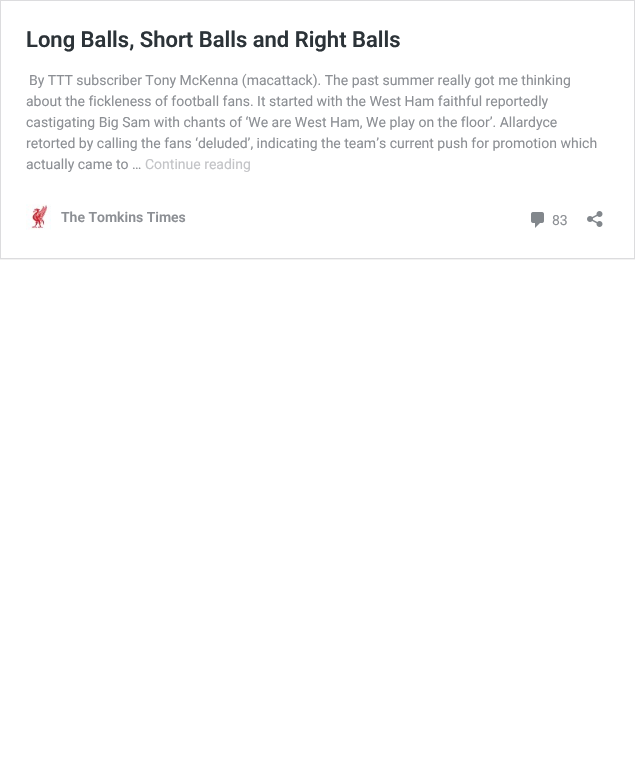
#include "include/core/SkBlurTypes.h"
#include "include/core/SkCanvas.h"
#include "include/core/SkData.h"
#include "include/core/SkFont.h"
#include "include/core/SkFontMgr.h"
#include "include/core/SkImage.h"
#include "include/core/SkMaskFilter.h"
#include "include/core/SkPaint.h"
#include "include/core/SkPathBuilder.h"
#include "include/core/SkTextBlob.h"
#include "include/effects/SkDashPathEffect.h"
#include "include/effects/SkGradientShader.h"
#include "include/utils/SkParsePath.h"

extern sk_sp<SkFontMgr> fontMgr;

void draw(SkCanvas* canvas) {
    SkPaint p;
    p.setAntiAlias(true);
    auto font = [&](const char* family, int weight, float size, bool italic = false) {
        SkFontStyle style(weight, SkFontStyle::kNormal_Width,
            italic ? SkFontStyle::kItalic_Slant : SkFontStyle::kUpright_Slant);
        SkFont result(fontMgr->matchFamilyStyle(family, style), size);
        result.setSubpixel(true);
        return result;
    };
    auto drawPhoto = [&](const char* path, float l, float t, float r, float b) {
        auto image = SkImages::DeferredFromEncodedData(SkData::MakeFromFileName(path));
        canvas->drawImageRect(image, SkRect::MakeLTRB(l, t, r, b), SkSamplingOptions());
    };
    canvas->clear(0xFFFFFFFF);
    canvas->save();
    canvas->clipRect(SkRect::MakeLTRB(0, 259, 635, 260));
    p.setColor(0x0D000000);
    p.setMaskFilter(SkMaskFilter::MakeBlur(kNormal_SkBlurStyle, 0.5f));
    canvas->drawRect(SkRect::MakeLTRB(0, 1, 635, 260), p);
    p.setMaskFilter(nullptr);
    canvas->restore();
    p.setStyle(SkPaint::kStroke_Style);
    p.setStrokeWidth(1);
    p.setColor(0xFFDCDCDE);
    canvas->drawRect(SkRect::MakeLTRB(0.5f, 0.5f, 634.5f, 258.5f), p);
    auto font1 = font("Roboto", 600, 22);
    p.setStyle(SkPaint::kFill_Style);
    p.setColor(0xFF2C3338);
    canvas->drawString("Long Balls, Short Balls and Right Balls", 26, 47, font1, p);
    auto font2 = font("Roboto", 400, 14);
    p.setColor(0xFF8C8F94);
    {
        const struct { const char* s; float x, y; } items[] = {
            {"By TTT subscriber Tony McKenna (macattack). The past summer really got me thinking", 29, 85},
            {"about the fickleness of football fans. It started with the West Ham faithful reportedly", 26, 106},
            {"castigating Big Sam with chants of ‘We are West Ham, We play on the floor’. Allardyce", 26, 127},
            {"retorted by calling the fans ‘deluded’, indicating the team’s current push for promotion which", 26, 148},
            {"actually came to …", 26, 169},
        };
        for (auto [s, x, y] : items) {
            canvas->drawString(s, x, y, font2, p);
        }
    }
    p.setColor(0xFFC3C4C7);
    canvas->drawString("Continue reading", 145, 169, font2, p);
    drawPhoto("media/1.png", 26, 204, 51, 230);
    auto font3 = font("Roboto", 600, 14);
    p.setColor(0xFF8C8F94);
    canvas->drawString("The Tomkins Times", 61, 222, font3, p);
    drawPhoto("media/2.png", 531, 212, 544, 228);
    canvas->drawString("83", 552, 225, font2, p);
    drawPhoto("media/3.png", 587, 211, 603, 227);
}
